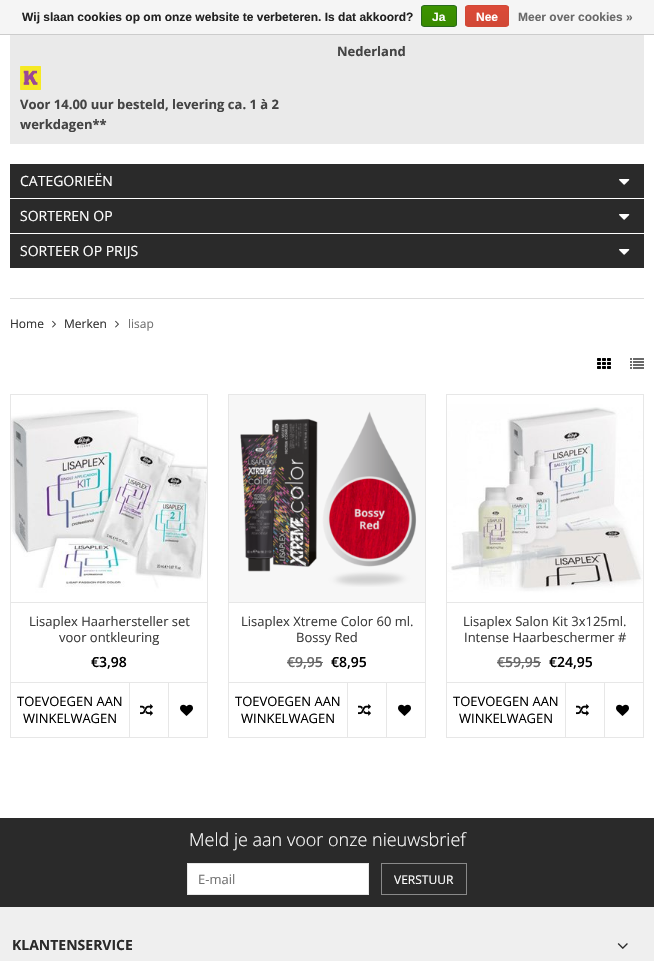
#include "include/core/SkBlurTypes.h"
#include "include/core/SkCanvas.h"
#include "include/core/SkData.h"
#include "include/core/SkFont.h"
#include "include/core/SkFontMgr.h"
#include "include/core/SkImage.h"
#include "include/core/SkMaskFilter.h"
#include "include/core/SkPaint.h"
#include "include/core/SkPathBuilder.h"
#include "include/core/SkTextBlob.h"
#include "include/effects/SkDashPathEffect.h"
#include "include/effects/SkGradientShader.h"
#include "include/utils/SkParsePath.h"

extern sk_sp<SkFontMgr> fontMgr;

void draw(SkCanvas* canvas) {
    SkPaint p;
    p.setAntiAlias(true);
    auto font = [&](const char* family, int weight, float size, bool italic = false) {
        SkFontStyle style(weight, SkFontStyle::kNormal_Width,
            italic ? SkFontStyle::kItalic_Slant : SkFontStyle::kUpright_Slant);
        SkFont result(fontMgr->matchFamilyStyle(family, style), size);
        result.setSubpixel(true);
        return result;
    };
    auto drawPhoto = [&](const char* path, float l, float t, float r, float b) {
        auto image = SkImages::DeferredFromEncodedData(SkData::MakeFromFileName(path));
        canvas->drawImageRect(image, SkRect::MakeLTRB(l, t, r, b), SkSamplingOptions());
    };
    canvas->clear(0xFFFFFFFF);
    p.setColor(0xFFF5F5F5);
    canvas->drawRect(SkRect::MakeLTRB(0, 0, 654, 34), p);
    p.setColor(0xFFCCCCCC);
    canvas->drawRect(SkRect::MakeLTRB(0, 34, 654, 35), p);
    auto font1 = font("Liberation Sans", 700, 12);
    p.setColor(0xFF222222);
    canvas->drawString("Wij slaan cookies op om onze website te verbeteren. Is dat akkoord?", 22, 21, font1, p);
    canvas->save();
    canvas->clipPath(SkPathBuilder().moveTo(424, 5).lineTo(454, 5).cubicTo(455.5f, 5, 457, 6.5f, 457, 8).lineTo(457, 24).cubicTo(457, 25.5f, 455.5f, 27, 454, 27).lineTo(424, 27).cubicTo(422.5f, 27, 421, 25.5f, 421, 24).lineTo(421, 8).cubicTo(421, 6.5f, 422.5f, 5, 424, 5).close().detach(), true);
    {
        const SkColor colors[] = {0xFF3C9300, 0xFF398A00};
        const float stops[] = {0, 1};
        const SkPoint ends[] = {{439, 6}, {439, 26}};
        p.setShader(SkGradientShader::MakeLinear(ends, colors, stops, 2, SkTileMode::kClamp));
        p.setAlpha(255);
    }
    canvas->drawRect(SkRect::MakeLTRB(421, 6, 457, 26), p);
    canvas->restore();
    p.setStyle(SkPaint::kStroke_Style);
    p.setStrokeWidth(1);
    p.setShader(nullptr);
    p.setColor(0xFF29691D);
    canvas->drawRoundRect(SkRect::MakeLTRB(421.5f, 5.5f, 456.5f, 26.5f), 2.5f, 2.5f, p);
    p.setStyle(SkPaint::kFill_Style);
    p.setColor(0xFFFFFFFF);
    canvas->drawString("Ja", 432, 21, font1, p);
    canvas->save();
    canvas->clipPath(SkPathBuilder().moveTo(468, 5).lineTo(506, 5).cubicTo(507.5f, 5, 509, 6.5f, 509, 8).lineTo(509, 24).cubicTo(509, 25.5f, 507.5f, 27, 506, 27).lineTo(468, 27).cubicTo(466.5f, 27, 465, 25.5f, 465, 24).lineTo(465, 8).cubicTo(465, 6.5f, 466.5f, 5, 468, 5).close().detach(), true);
    {
        const SkColor colors[] = {0xFFDC4A38, 0xFFD14836};
        const float stops[] = {0, 1};
        const SkPoint ends[] = {{487, 6}, {487, 26}};
        p.setShader(SkGradientShader::MakeLinear(ends, colors, stops, 2, SkTileMode::kClamp));
        p.setAlpha(255);
    }
    canvas->drawRect(SkRect::MakeLTRB(465, 6, 509, 26), p);
    canvas->restore();
    p.setStyle(SkPaint::kStroke_Style);
    p.setShader(nullptr);
    p.setColor(0xFFD14836);
    canvas->drawRoundRect(SkRect::MakeLTRB(465.5f, 5.5f, 508.5f, 26.5f), 2.5f, 2.5f, p);
    p.setStyle(SkPaint::kFill_Style);
    p.setColor(0xFFFFFFFF);
    canvas->drawString("Nee", 476, 21, font1, p);
    p.setColor(0xFF696969);
    canvas->drawString("Meer over cookies »", 518, 21, font1, p);
    p.setColor(0xFFEAEAEA);
    canvas->drawRect(SkRect::MakeLTRB(10, 35, 644, 144), p);
    auto font2 = font("Open Sans", 700, 13);
    p.setColor(0xFF444444);
    canvas->drawString("Nederland", 337, 56, font2, p);
    drawPhoto("media/1.png", 20, 66, 41, 90);
    canvas->drawString("Voor 14.00 uur besteld, levering ca. 1 à 2", 20, 109, font2, p);
    canvas->drawString("werkdagen**", 20, 129, font2, p);
    p.setColor(0xFF2A2A2A);
    canvas->drawRect(SkRect::MakeLTRB(10, 164, 644, 198), p);
    auto font3 = font("Open Sans", 400, 14);
    p.setColor(0xFFFFFFFF);
    canvas->drawString("CATEGORIEËN", 20, 186, font3, p);
    drawPhoto("media/2.png", 619, 179, 630, 185);
    p.setColor(0xFF2A2A2A);
    canvas->drawRect(SkRect::MakeLTRB(10, 199, 644, 233), p);
    p.setColor(0xFFFFFFFF);
    canvas->drawString("SORTEREN OP", 20, 221, font3, p);
    drawPhoto("media/2.png", 619, 214, 630, 220);
    p.setColor(0xFF2A2A2A);
    canvas->drawRect(SkRect::MakeLTRB(10, 234, 644, 268), p);
    p.setColor(0xFFFFFFFF);
    canvas->drawString("SORTEER OP PRIJS", 20, 256, font3, p);
    drawPhoto("media/2.png", 619, 249, 630, 255);
    p.setColor(0xFFDDDDDD);
    canvas->drawRect(SkRect::MakeLTRB(10, 298, 644, 299), p);
    auto font4 = font("Open Sans", 400, 12);
    p.setColor(0xFF333333);
    canvas->drawString("Home", 10, 328, font4, p);
    drawPhoto("media/3.png", 52, 320, 56, 328);
    canvas->drawString("Merken", 64, 328, font4, p);
    drawPhoto("media/3.png", 115, 320, 119, 328);
    p.setColor(0xFF727272);
    canvas->drawString("lisap", 128, 328, font4, p);
    drawPhoto("media/4.png", 597, 358, 611, 369);
    drawPhoto("media/5.png", 630, 358, 644, 369);
    {
        const struct { float l, t, r, b; SkColor color; } items[] = {
            {10, 394, 208, 395, 0xFFE7E7E7},
            {207, 394, 208, 602, 0xFFE7E7E7},
            {10, 394, 11, 602, 0xFFE7E7E7},
        };
        for (auto [l, t, r, b, color] : items) {
            p.setColor(color);
            canvas->drawRect(SkRect::MakeLTRB(l, t, r, b), p);
        }
    }
    drawPhoto("media/6.png", 11, 395, 207, 602);
    p.setStyle(SkPaint::kStroke_Style);
    canvas->drawRect(SkRect::MakeLTRB(10.5f, 602.5f, 207.5f, 737.5f), p);
    auto font5 = font("Open Sans", 400, 13);
    p.setStyle(SkPaint::kFill_Style);
    p.setColor(0xFF3D3D3D);
    canvas->drawString("Lisaplex Haarhersteller set", 29, 626, font5, p);
    canvas->drawString("voor ontkleuring", 59, 642, font5, p);
    auto font6 = font("Open Sans", 600, 14);
    p.setColor(0xFF000000);
    canvas->drawString("€3,98", 91, 667, font6, p);
    p.setColor(0xFFE7E7E7);
    canvas->drawRect(SkRect::MakeLTRB(11, 682, 207, 683), p);
    p.setColor(0xFF000000);
    canvas->drawString("TOEVOEGEN AAN", 17, 706, font5, p);
    canvas->drawString("WINKELWAGEN", 23, 723, font5, p);
    p.setColor(0xFFE7E7E7);
    canvas->drawRect(SkRect::MakeLTRB(129, 683, 130, 737), p);
    drawPhoto("media/7.png", 140, 704, 153, 716);
    canvas->drawRect(SkRect::MakeLTRB(168, 683, 169, 737), p);
    drawPhoto("media/8.png", 180, 704, 193, 716);
    {
        const struct { float l, t, r, b; SkColor color; } items[] = {
            {228, 394, 426, 395, 0xFFE7E7E7},
            {425, 394, 426, 602, 0xFFE7E7E7},
            {228, 394, 229, 602, 0xFFE7E7E7},
            {229, 395, 425, 602, 0xFFF7F7F7},
        };
        for (auto [l, t, r, b, color] : items) {
            p.setColor(color);
            canvas->drawRect(SkRect::MakeLTRB(l, t, r, b), p);
        }
    }
    drawPhoto("media/9.png", 240, 411, 417, 587);
    p.setStyle(SkPaint::kStroke_Style);
    p.setColor(0xFFE7E7E7);
    canvas->drawRect(SkRect::MakeLTRB(228.5f, 602.5f, 425.5f, 737.5f), p);
    p.setStyle(SkPaint::kFill_Style);
    p.setColor(0xFF3D3D3D);
    canvas->drawString("Lisaplex Xtreme Color 60 ml.", 241, 626, font5, p);
    canvas->drawString("Bossy Red", 296, 642, font5, p);
    p.setColor(0xFF696969);
    canvas->drawString("€9,95", 287, 667, font6, p);
    canvas->drawRect(SkRect::MakeLTRB(287, 662, 323, 663), p);
    p.setColor(0xFF000000);
    canvas->drawString("€8,95", 331, 667, font6, p);
    p.setColor(0xFFE7E7E7);
    canvas->drawRect(SkRect::MakeLTRB(229, 682, 425, 683), p);
    p.setColor(0xFF000000);
    canvas->drawString("TOEVOEGEN AAN", 235, 706, font5, p);
    canvas->drawString("WINKELWAGEN", 241, 723, font5, p);
    p.setColor(0xFFE7E7E7);
    canvas->drawRect(SkRect::MakeLTRB(347, 683, 348, 737), p);
    drawPhoto("media/7.png", 358, 704, 371, 716);
    canvas->drawRect(SkRect::MakeLTRB(386, 683, 387, 737), p);
    drawPhoto("media/8.png", 398, 704, 411, 716);
    {
        const struct { float l, t, r, b; SkColor color; } items[] = {
            {446, 394, 644, 395, 0xFFE7E7E7},
            {643, 394, 644, 602, 0xFFE7E7E7},
            {446, 394, 447, 602, 0xFFE7E7E7},
        };
        for (auto [l, t, r, b, color] : items) {
            p.setColor(color);
            canvas->drawRect(SkRect::MakeLTRB(l, t, r, b), p);
        }
    }
    drawPhoto("media/10.png", 447, 395, 643, 602);
    p.setStyle(SkPaint::kStroke_Style);
    canvas->drawRect(SkRect::MakeLTRB(446.5f, 602.5f, 643.5f, 737.5f), p);
    p.setStyle(SkPaint::kFill_Style);
    p.setColor(0xFF3D3D3D);
    canvas->drawString("Lisaplex Salon Kit 3x125ml.", 463, 626, font5, p);
    canvas->drawString("Intense Haarbeschermer #", 464, 642, font5, p);
    p.setColor(0xFF696969);
    canvas->drawString("€59,95", 497, 667, font6, p);
    canvas->drawRect(SkRect::MakeLTRB(497, 662, 541, 663), p);
    p.setColor(0xFF000000);
    canvas->drawString("€24,95", 549, 667, font6, p);
    p.setColor(0xFFE7E7E7);
    canvas->drawRect(SkRect::MakeLTRB(447, 682, 643, 683), p);
    p.setColor(0xFF000000);
    canvas->drawString("TOEVOEGEN AAN", 453, 706, font5, p);
    canvas->drawString("WINKELWAGEN", 459, 723, font5, p);
    p.setColor(0xFFE7E7E7);
    canvas->drawRect(SkRect::MakeLTRB(565, 683, 566, 737), p);
    drawPhoto("media/7.png", 576, 704, 589, 716);
    canvas->drawRect(SkRect::MakeLTRB(604, 683, 605, 737), p);
    drawPhoto("media/8.png", 616, 704, 629, 716);
    p.setColor(0xFFEFEFEF);
    canvas->drawRect(SkRect::MakeLTRB(0, 907, 654, 961), p);
    p.setColor(0xFF2A2A2A);
    canvas->drawRect(SkRect::MakeLTRB(0, 818, 654, 907), p);
    auto font7 = font("Open Sans", 300, 18);
    p.setColor(0xFFFFFFFF);
    canvas->drawString("Meld je aan voor onze nieuwsbrief", 189, 846, font7, p);
    canvas->drawRect(SkRect::MakeLTRB(187.5f, 863.5f, 368.5f, 894.5f), p);
    p.setStyle(SkPaint::kStroke_Style);
    p.setColor(0xFFE7E7E7);
    canvas->drawRect(SkRect::MakeLTRB(187.5f, 863.5f, 368.5f, 894.5f), p);
    p.setStyle(SkPaint::kFill_Style);
    p.setColor(0xFF727272);
    canvas->drawString("E-mail", 198, 884, font5, p);
    p.setStyle(SkPaint::kStroke_Style);
    p.setColor(0xFF898989);
    canvas->drawRect(SkRect::MakeLTRB(381.5f, 863.5f, 466.5f, 894.5f), p);
    p.setStyle(SkPaint::kFill_Style);
    p.setColor(0xFFFFFFFF);
    canvas->drawString("VERSTUUR", 394, 884, font4, p);
    auto font8 = font("Open Sans", 700, 14);
    p.setColor(0xFF2A2A2A);
    canvas->drawString("KLANTENSERVICE", 12, 950, font8, p);
    drawPhoto("media/11.png", 617, 943, 628, 949);
}
